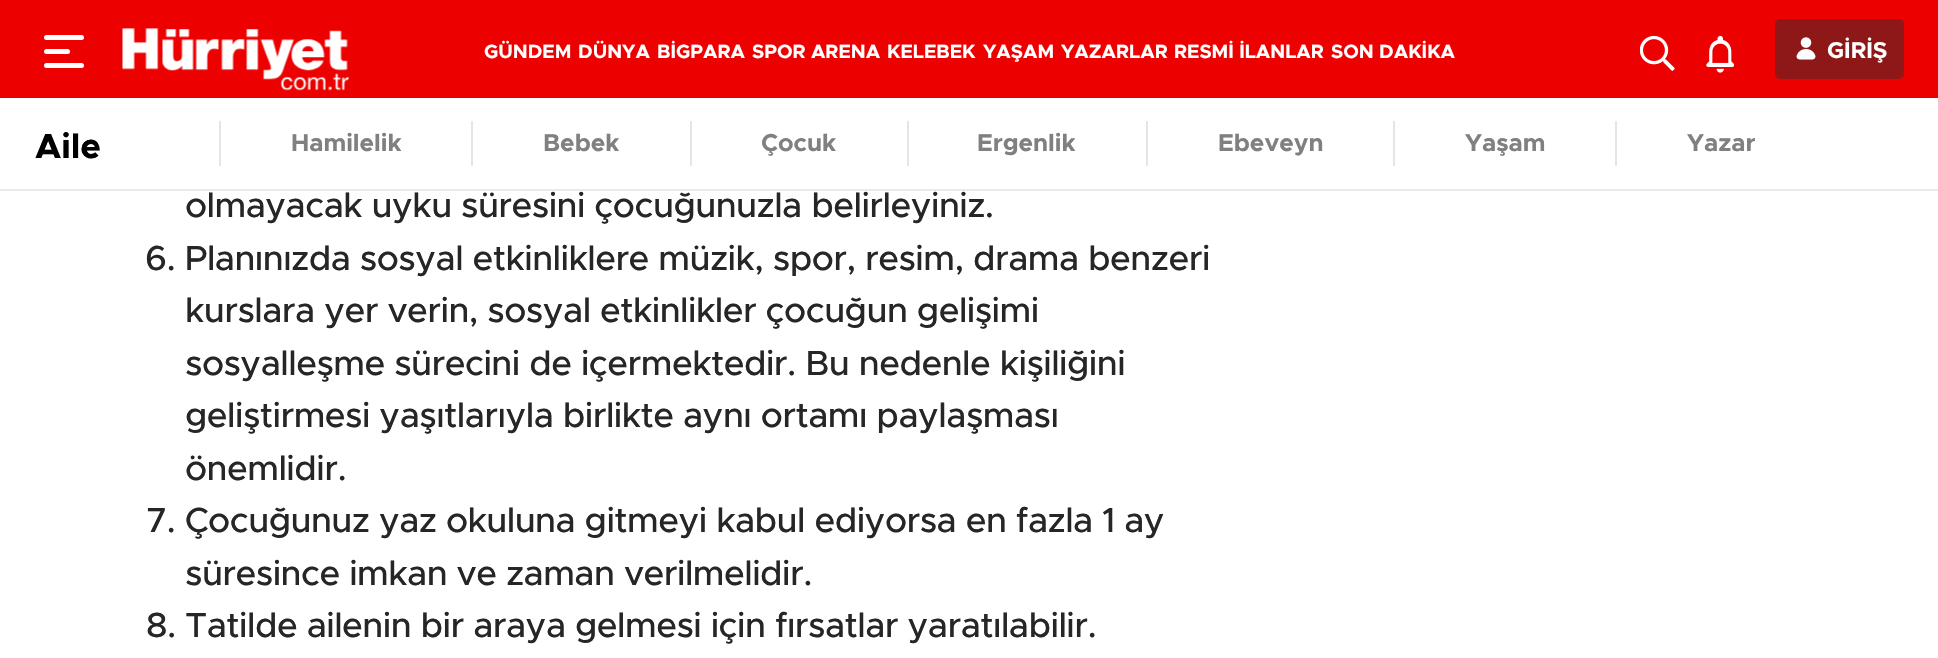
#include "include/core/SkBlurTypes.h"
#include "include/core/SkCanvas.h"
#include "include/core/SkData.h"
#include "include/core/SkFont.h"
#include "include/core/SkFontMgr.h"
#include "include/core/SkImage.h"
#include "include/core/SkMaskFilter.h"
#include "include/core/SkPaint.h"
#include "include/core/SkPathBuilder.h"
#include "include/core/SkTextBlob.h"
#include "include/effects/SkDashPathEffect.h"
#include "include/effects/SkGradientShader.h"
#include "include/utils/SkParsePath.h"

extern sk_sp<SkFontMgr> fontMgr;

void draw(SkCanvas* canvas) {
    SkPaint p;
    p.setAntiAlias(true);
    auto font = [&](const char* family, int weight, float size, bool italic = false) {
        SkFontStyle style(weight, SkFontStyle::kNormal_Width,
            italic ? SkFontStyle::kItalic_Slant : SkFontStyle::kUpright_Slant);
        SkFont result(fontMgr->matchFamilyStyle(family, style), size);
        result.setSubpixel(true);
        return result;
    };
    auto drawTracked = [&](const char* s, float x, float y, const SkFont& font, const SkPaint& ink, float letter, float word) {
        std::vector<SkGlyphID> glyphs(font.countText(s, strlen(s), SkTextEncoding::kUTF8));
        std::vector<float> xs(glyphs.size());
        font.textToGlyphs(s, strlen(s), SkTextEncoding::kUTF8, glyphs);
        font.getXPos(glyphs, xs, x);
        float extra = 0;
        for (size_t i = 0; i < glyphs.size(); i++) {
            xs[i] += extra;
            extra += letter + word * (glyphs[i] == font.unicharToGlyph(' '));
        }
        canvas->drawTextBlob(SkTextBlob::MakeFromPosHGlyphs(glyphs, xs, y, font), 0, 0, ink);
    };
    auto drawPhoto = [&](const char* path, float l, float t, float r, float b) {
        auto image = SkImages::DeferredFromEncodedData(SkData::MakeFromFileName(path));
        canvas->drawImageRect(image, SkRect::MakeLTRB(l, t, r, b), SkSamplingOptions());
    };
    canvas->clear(0xFFFFFFFF);
    p.setColor(0xFFEC0000);
    canvas->drawRect(SkRect::MakeLTRB(0, 0, 1938, 98), p);
    p.setColor(0xFFFFFFFF);
    canvas->drawRoundRect(SkRect::MakeLTRB(44, 35, 84, 40), 2.5f, 2.5f, p);
    canvas->drawRoundRect(SkRect::MakeLTRB(44, 49, 70, 54), 2.5f, 2.5f, p);
    canvas->drawRoundRect(SkRect::MakeLTRB(44, 63, 84, 68), 2.5f, 2.5f, p);
    drawPhoto("media/1.png", 122, 28, 349, 91);
    auto font1 = font("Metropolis", 700, 19.25f);
    {
        const struct { const char* s; float x, y; } items[] = {
            {"GÜNDEM", 484, 58},
            {"DÜNYA", 578, 58},
            {"BİGPARA", 657, 58},
            {"SPOR ARENA", 752, 58},
            {"KELEBEK", 887, 58},
            {"YAŞAM", 983, 58},
            {"YAZARLAR", 1061, 58},
            {"RESMİ İLANLAR", 1174, 58},
            {"SON DAKİKA", 1331, 58},
        };
        for (auto [s, x, y] : items) {
            canvas->drawString(s, x, y, font1, p);
        }
    }
    drawPhoto("media/2.png", 1640, 35, 1675, 71);
    drawPhoto("media/3.png", 1706, 35, 1734, 73);
    p.setColor(0xFF8E1818);
    canvas->drawRoundRect(SkRect::MakeLTRB(1775, 19, 1904, 79), 5, 5, p);
    drawPhoto("media/4.png", 1796, 37, 1816, 60);
    auto font2 = font("Metropolis", 700, 23);
    p.setColor(0xFFFFFFFF);
    canvas->drawString("GİRİŞ", 1827, 58, font2, p);
    p.setColor(0xFFE9E9E9);
    canvas->drawRect(SkRect::MakeLTRB(0, 189, 1938, 191), p);
    auto font3 = font("Metropolis", 700, 35);
    p.setColor(0xFF000000);
    canvas->drawString("Aile", 35, 158, font3, p);
    p.setColor(0xFFE5E5E5);
    canvas->drawRect(SkRect::MakeLTRB(219, 121, 221, 166), p);
    auto font4 = font("Metropolis", 700, 24.5f);
    p.setColor(0xFF808080);
    canvas->drawString("Hamilelik", 291, 151, font4, p);
    p.setColor(0xFFE5E5E5);
    canvas->drawRect(SkRect::MakeLTRB(471, 121, 473, 166), p);
    p.setColor(0xFF808080);
    canvas->drawString("Bebek", 543, 151, font4, p);
    p.setColor(0xFFE5E5E5);
    canvas->drawRect(SkRect::MakeLTRB(690, 121, 692, 166), p);
    p.setColor(0xFF808080);
    canvas->drawString("Çocuk", 761, 151, font4, p);
    p.setColor(0xFFE5E5E5);
    canvas->drawRect(SkRect::MakeLTRB(907, 121, 909, 166), p);
    p.setColor(0xFF808080);
    canvas->drawString("Ergenlik", 977, 151, font4, p);
    p.setColor(0xFFE5E5E5);
    canvas->drawRect(SkRect::MakeLTRB(1146, 121, 1148, 166), p);
    p.setColor(0xFF808080);
    canvas->drawString("Ebeveyn", 1218, 151, font4, p);
    p.setColor(0xFFE5E5E5);
    canvas->drawRect(SkRect::MakeLTRB(1393, 121, 1395, 166), p);
    p.setColor(0xFF808080);
    canvas->drawString("Yaşam", 1465, 151, font4, p);
    p.setColor(0xFFE5E5E5);
    canvas->drawRect(SkRect::MakeLTRB(1615, 121, 1617, 166), p);
    canvas->save();
    canvas->clipRect(SkRect::MakeLTRB(219, 121, 1755, 166));
    p.setColor(0xFF808080);
    canvas->drawString("Yazar", 1687, 151, font4, p);
    canvas->restore();
    auto font5 = font("Metropolis", 500, 35);
    p.setColor(0xFF262626);
    {
        const struct { const char* s; float x, y; } items[] = {
            {"olmayacak uyku süresini çocuğunuzla belirleyiniz.", 185, 217},
            {"6. Planınızda sosyal etkinliklere müzik, spor, resim, drama benzeri", 145, 270},
            {"kurslara yer verin, sosyal etkinlikler çocuğun gelişimi", 185, 322},
            {"sosyalleşme sürecini de içermektedir. Bu nedenle kişiliğini", 185, 375},
            {"geliştirmesi yaşıtlarıyla birlikte aynı ortamı paylaşması", 185, 427},
            {"önemlidir.", 185, 480},
            {"7. Çocuğunuz yaz okuluna gitmeyi kabul ediyorsa en fazla 1 ay", 146, 532},
            {"süresince imkan ve zaman verilmelidir.", 185, 585},
            {"8. Tatilde ailenin bir araya gelmesi için fırsatlar yaratılabilir.", 146, 637},
        };
        for (auto [s, x, y] : items) {
            drawTracked(s, x, y, font5, p, -0.53f, 0);
        }
    }
}
